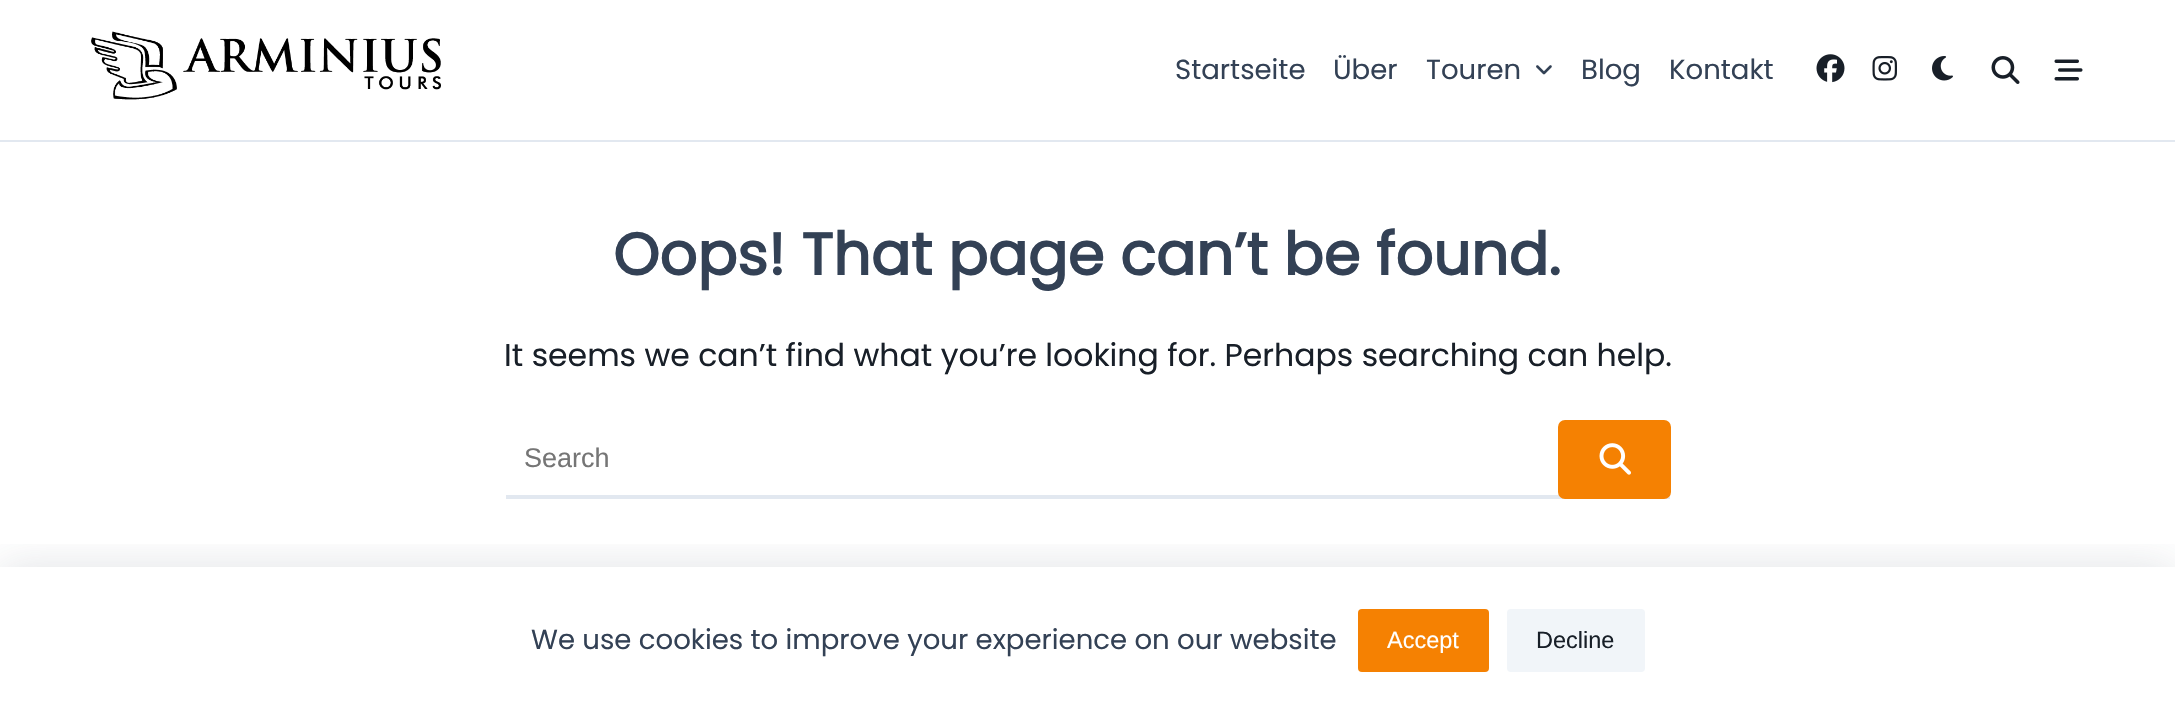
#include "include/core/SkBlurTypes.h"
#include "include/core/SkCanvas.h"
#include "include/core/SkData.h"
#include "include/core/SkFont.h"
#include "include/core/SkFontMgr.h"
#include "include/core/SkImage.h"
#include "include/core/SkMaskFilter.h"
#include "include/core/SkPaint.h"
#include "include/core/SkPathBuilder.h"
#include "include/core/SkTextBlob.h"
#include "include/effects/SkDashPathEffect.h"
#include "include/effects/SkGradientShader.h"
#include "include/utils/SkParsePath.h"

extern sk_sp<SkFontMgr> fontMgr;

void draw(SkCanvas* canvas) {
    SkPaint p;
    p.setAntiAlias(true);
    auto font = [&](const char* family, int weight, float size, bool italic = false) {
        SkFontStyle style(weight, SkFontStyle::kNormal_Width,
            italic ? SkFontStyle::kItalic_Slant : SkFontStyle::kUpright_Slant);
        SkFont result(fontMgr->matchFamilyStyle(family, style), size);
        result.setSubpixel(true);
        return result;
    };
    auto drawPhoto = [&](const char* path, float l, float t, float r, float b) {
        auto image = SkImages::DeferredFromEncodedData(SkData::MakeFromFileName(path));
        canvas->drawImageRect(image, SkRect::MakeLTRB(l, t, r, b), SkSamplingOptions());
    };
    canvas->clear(0xFFFFFFFF);
    p.setColor(0xFFE2E8F0);
    canvas->drawRect(SkRect::MakeLTRB(0, 140, 2175, 142), p);
    drawPhoto("media/1.png", 91, 31, 441, 100);
    auto font1 = font("Poppins", 400, 27.55f);
    p.setColor(0xFF334155);
    {
        const struct { const char* s; float x, y; } items[] = {
            {"Startseite", 1175, 79},
            {"Über", 1333, 79},
            {"Touren", 1426, 79},
        };
        for (auto [s, x, y] : items) {
            canvas->drawString(s, x, y, font1, p);
        }
    }
    drawPhoto("media/2.png", 1536, 65, 1552, 75);
    canvas->drawString("Blog", 1581, 79, font1, p);
    canvas->drawString("Kontakt", 1669, 79, font1, p);
    drawPhoto("media/3.png", 1816, 54, 1845, 83);
    drawPhoto("media/4.png", 1872, 56, 1897, 81);
    drawPhoto("media/5.png", 1932, 56, 1953, 81);
    drawPhoto("media/6.png", 1991, 56, 2020, 84);
    drawPhoto("media/7.png", 2054, 59, 2083, 81);
    auto font2 = font("Poppins", 700, 59);
    canvas->drawString("Oops! That page can’t be found.", 613, 275, font2, p);
    auto font3 = font("Poppins", 400, 31.5f);
    p.setColor(0xFF181F28);
    canvas->drawString("It seems we can’t find what you’re looking for. Perhaps searching can help.", 504, 366, font3, p);
    p.setColor(0xFFE2E8F0);
    canvas->drawRect(SkRect::MakeLTRB(506, 495, 1670, 499), p);
    auto font4 = font("Liberation Sans", 400, 27);
    p.setColor(0xFF757575);
    canvas->drawString("Search", 524, 467, font4, p);
    p.setColor(0xFFF58102);
    canvas->drawRoundRect(SkRect::MakeLTRB(1559, 421, 1670, 498), 6, 6, p);
    p.setStyle(SkPaint::kStroke_Style);
    p.setStrokeWidth(2);
    canvas->drawRoundRect(SkRect::MakeLTRB(1559, 421, 1670, 498), 6, 6, p);
    drawPhoto("media/8.png", 1599, 443, 1631, 475);
    canvas->save();
    canvas->clipRect(SkRect::MakeLTRB(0, 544, 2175, 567));
    p.setStyle(SkPaint::kFill_Style);
    p.setColor(0x262C3E50);
    p.setMaskFilter(SkMaskFilter::MakeBlur(kNormal_SkBlurStyle, 21));
    canvas->drawRect(SkRect::MakeLTRB(0, 567, 2175, 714), p);
    p.setMaskFilter(nullptr);
    canvas->restore();
    p.setColor(0xFF334155);
    canvas->drawString("We use cookies to improve your experience on our website", 531, 649, font1, p);
    p.setColor(0xFFF58102);
    canvas->drawRoundRect(SkRect::MakeLTRB(1358, 609, 1489, 672), 4, 4, p);
    auto font5 = font("Liberation Sans", 400, 23.5f);
    p.setColor(0xFFFFFFFF);
    canvas->drawString("Accept", 1387, 648, font5, p);
    p.setColor(0xFFF1F5F9);
    canvas->drawRoundRect(SkRect::MakeLTRB(1507, 609, 1645, 672), 4, 4, p);
    p.setColor(0xFF181F28);
    canvas->drawString("Decline", 1536, 648, font5, p);
}
